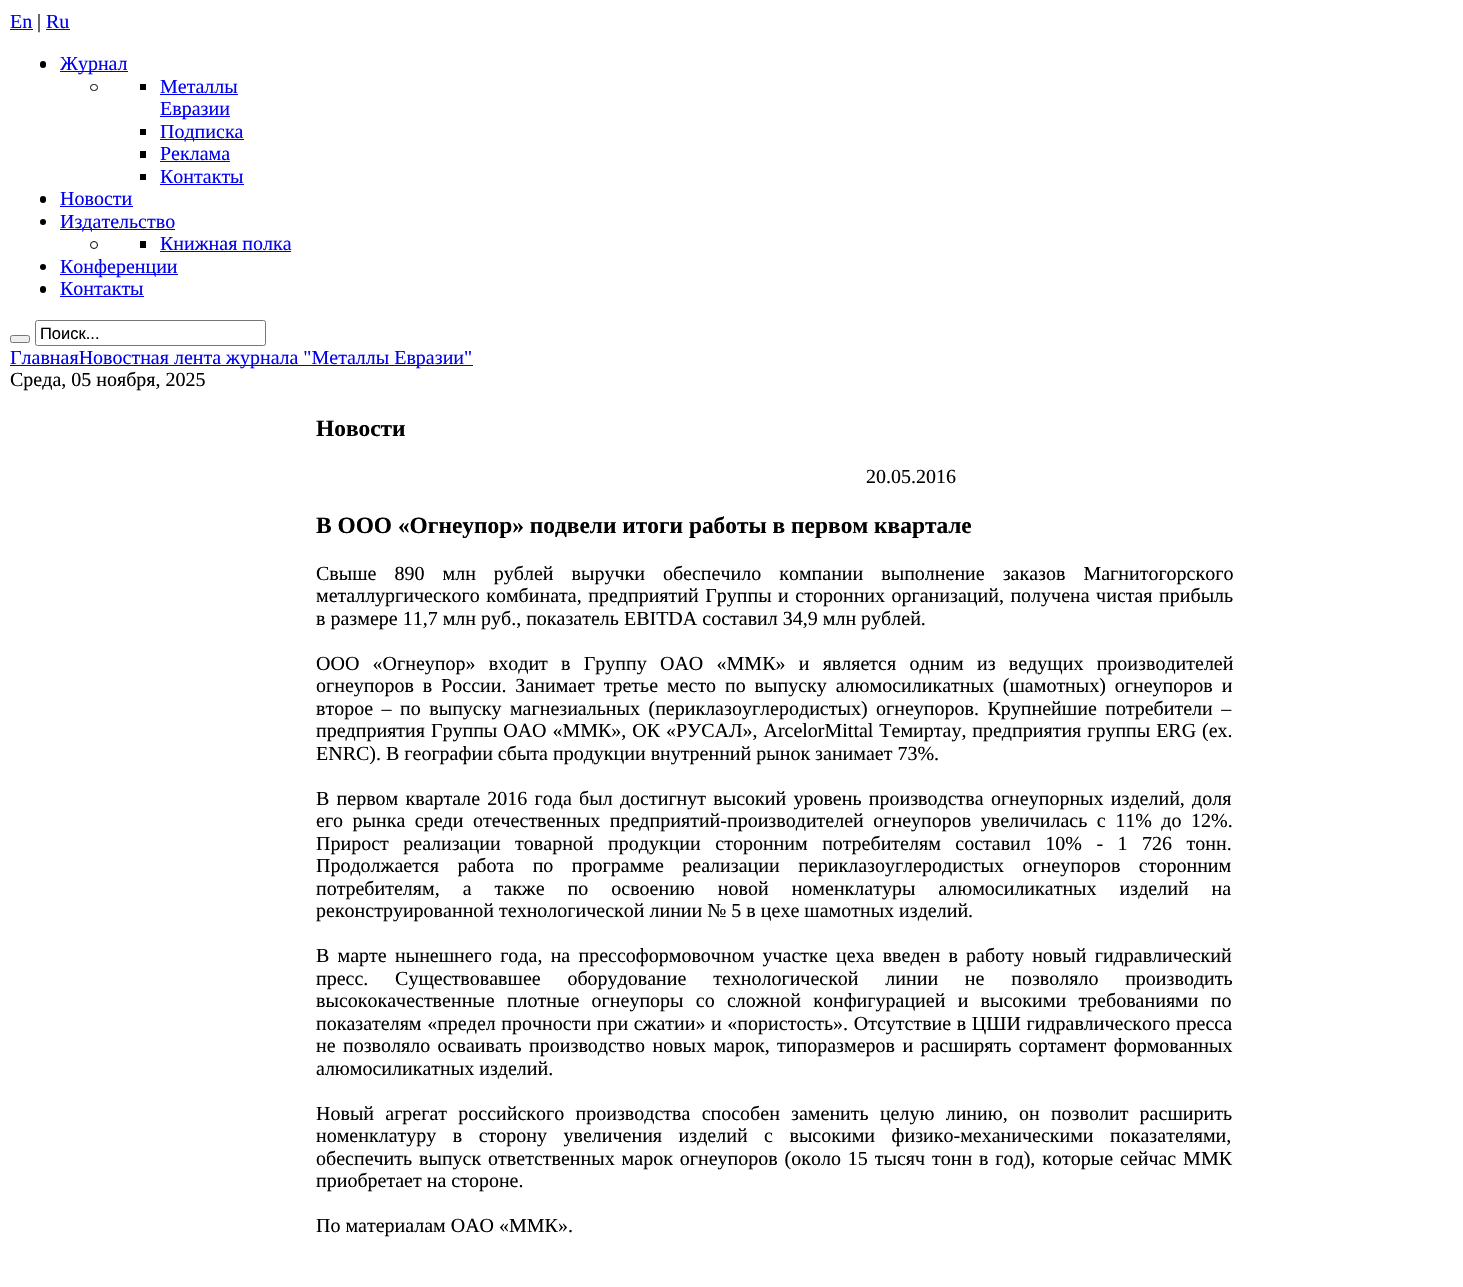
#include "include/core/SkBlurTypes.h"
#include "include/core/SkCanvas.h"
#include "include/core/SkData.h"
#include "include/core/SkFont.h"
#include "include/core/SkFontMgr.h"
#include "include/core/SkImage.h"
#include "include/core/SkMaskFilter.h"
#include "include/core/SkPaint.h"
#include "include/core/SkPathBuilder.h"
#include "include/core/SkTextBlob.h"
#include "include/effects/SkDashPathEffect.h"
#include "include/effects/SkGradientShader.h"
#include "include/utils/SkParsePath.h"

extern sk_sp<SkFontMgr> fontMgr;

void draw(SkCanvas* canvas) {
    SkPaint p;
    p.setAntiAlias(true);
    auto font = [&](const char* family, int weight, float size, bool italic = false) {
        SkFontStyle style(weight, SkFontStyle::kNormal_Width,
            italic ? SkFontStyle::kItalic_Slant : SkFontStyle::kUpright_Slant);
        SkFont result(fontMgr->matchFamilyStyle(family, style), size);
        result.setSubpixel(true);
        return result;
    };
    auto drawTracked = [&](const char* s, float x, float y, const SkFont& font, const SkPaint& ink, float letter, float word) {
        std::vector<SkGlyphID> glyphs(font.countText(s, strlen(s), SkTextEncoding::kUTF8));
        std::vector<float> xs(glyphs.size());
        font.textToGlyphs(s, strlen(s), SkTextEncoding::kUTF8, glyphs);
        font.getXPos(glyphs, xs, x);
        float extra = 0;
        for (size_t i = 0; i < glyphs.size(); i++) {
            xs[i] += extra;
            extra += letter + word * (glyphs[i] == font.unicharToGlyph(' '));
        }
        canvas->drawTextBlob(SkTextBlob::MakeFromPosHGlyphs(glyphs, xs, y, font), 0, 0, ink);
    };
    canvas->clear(0xFFFFFFFF);
    auto font1 = font("Liberation Serif", 400, 20);
    p.setColor(0xFF0000EE);
    canvas->drawString("En", 10, 28, font1, p);
    canvas->drawRect(SkRect::MakeLTRB(10, 29, 33, 30), p);
    p.setColor(0xFF000000);
    canvas->drawString("|", 37, 28, font1, p);
    p.setColor(0xFF0000EE);
    canvas->drawString("Ru", 46, 28, font1, p);
    canvas->drawRect(SkRect::MakeLTRB(46, 29, 70, 30), p);
    p.setColor(0xFF000000);
    canvas->drawRoundRect(SkRect::MakeLTRB(40, 61, 46, 68), 3, 3, p);
    p.setColor(0xFF0000EE);
    canvas->drawRect(SkRect::MakeLTRB(60, 71, 128, 72), p);
    canvas->drawString("Журнал", 60, 70, font1, p);
    p.setStyle(SkPaint::kStroke_Style);
    p.setStrokeWidth(1);
    p.setColor(0xFF000000);
    canvas->drawRoundRect(SkRect::MakeLTRB(90.5f, 84.5f, 97.5f, 90.5f), 3, 3, p);
    p.setStyle(SkPaint::kFill_Style);
    canvas->drawRect(SkRect::MakeLTRB(140, 84, 146, 90), p);
    p.setColor(0xFF0000EE);
    canvas->drawString("Металлы", 160, 93, font1, p);
    canvas->drawRect(SkRect::MakeLTRB(160, 94, 238, 95), p);
    canvas->drawRect(SkRect::MakeLTRB(160, 116, 230, 117), p);
    canvas->drawString("Евразии", 160, 115, font1, p);
    p.setColor(0xFF000000);
    canvas->drawRect(SkRect::MakeLTRB(140, 129, 146, 135), p);
    p.setColor(0xFF0000EE);
    canvas->drawRect(SkRect::MakeLTRB(160, 139, 244, 140), p);
    canvas->drawString("Подписка", 160, 138, font1, p);
    p.setColor(0xFF000000);
    canvas->drawRect(SkRect::MakeLTRB(140, 151, 146, 158), p);
    p.setColor(0xFF0000EE);
    canvas->drawString("Реклама", 160, 160, font1, p);
    canvas->drawRect(SkRect::MakeLTRB(160, 161, 230, 162), p);
    p.setColor(0xFF000000);
    canvas->drawRect(SkRect::MakeLTRB(140, 174, 146, 180), p);
    p.setColor(0xFF0000EE);
    canvas->drawString("Контакты", 160, 183, font1, p);
    canvas->drawRect(SkRect::MakeLTRB(160, 184, 244, 185), p);
    p.setColor(0xFF000000);
    canvas->drawRoundRect(SkRect::MakeLTRB(40, 196, 46, 203), 3, 3, p);
    p.setColor(0xFF0000EE);
    canvas->drawString("Новости", 60, 205, font1, p);
    canvas->drawRect(SkRect::MakeLTRB(60, 206, 133, 207), p);
    p.setColor(0xFF000000);
    canvas->drawCircle(43, 222, 3, p);
    p.setColor(0xFF0000EE);
    canvas->drawRect(SkRect::MakeLTRB(60, 229, 175, 230), p);
    canvas->drawString("Издательство", 60, 228, font1, p);
    p.setStyle(SkPaint::kStroke_Style);
    p.setColor(0xFF000000);
    canvas->drawCircle(94, 245, 3.5f, p);
    p.setStyle(SkPaint::kFill_Style);
    canvas->drawRect(SkRect::MakeLTRB(140, 241, 146, 248), p);
    p.setColor(0xFF0000EE);
    canvas->drawString("Книжная полка", 160, 250, font1, p);
    canvas->drawRect(SkRect::MakeLTRB(160, 251, 291, 252), p);
    p.setColor(0xFF000000);
    canvas->drawCircle(43, 267, 3, p);
    p.setColor(0xFF0000EE);
    canvas->drawRect(SkRect::MakeLTRB(60, 274, 178, 275), p);
    canvas->drawString("Конференции", 60, 273, font1, p);
    p.setColor(0xFF000000);
    canvas->drawRoundRect(SkRect::MakeLTRB(40, 286, 46, 293), 3, 3, p);
    p.setColor(0xFF0000EE);
    canvas->drawString("Контакты", 60, 295, font1, p);
    canvas->drawRect(SkRect::MakeLTRB(60, 296, 144, 297), p);
    p.setColor(0xFFEFEFEF);
    canvas->drawRoundRect(SkRect::MakeLTRB(10.5f, 335.5f, 29.5f, 342.5f), 2, 2, p);
    p.setStyle(SkPaint::kStroke_Style);
    p.setColor(0xFF767676);
    canvas->drawRoundRect(SkRect::MakeLTRB(10.5f, 335.5f, 29.5f, 342.5f), 2, 2, p);
    canvas->drawRoundRect(SkRect::MakeLTRB(35.5f, 320.5f, 265.5f, 345.5f), 2, 2, p);
    auto font2 = font("Liberation Sans", 400, 16.5f);
    p.setStyle(SkPaint::kFill_Style);
    p.setColor(0xFF000000);
    canvas->drawString("Поиск...", 40, 339, font2, p);
    p.setColor(0xFF0000EE);
    canvas->drawRect(SkRect::MakeLTRB(10, 365, 473, 366), p);
    canvas->drawString("ГлавнаяНовостная лента журнала \"Металлы Евразии\"", 10, 364, font1, p);
    p.setColor(0xFF000000);
    canvas->drawString("Среда, 05 ноября, 2025", 10, 386, font1, p);
    auto font3 = font("Liberation Serif", 700, 23.4f);
    canvas->drawString("Новости", 316, 436, font3, p);
    canvas->drawString("20.05.2016", 866, 483, font1, p);
    canvas->drawString("В ООО «Огнеупор» подвели итоги работы в первом квартале", 316, 533, font3, p);
    drawTracked("Свыше 890 млн рублей выручки обеспечило компании выполнение заказов Магнитогорского", 316, 580, font1, p, 0, 13);
    drawTracked("металлургического комбината, предприятий Группы и сторонних организаций, получена чистая прибыль", 316, 602, font1, p, 0, 1.5f);
    canvas->drawString("в размере 11,7 млн руб., показатель EBITDA составил 34,9 млн рублей.", 316, 625, font1, p);
    drawTracked("ООО «Огнеупор» входит в Группу ОАО «ММК» и является одним из ведущих производителей", 316, 670, font1, p, 0, 8.25f);
    drawTracked("огнеупоров в России. Занимает третье место по выпуску алюмосиликатных (шамотных) огнеупоров и", 316, 692, font1, p, 0, 3.9f);
    drawTracked("второе – по выпуску магнезиальных (периклазоуглеродистых) огнеупоров. Крупнейшие потребители –", 316, 715, font1, p, 0, 3.5f);
    drawTracked("предприятия Группы ОАО «ММК», ОК «РУСАЛ», ArcelorMittal Темиртау, предприятия группы ERG (ex.", 316, 737, font1, p, 0, 0.9f);
    canvas->drawString("ENRC). В географии сбыта продукции внутренний рынок занимает 73%.", 316, 760, font1, p);
    drawTracked("В первом квартале 2016 года был достигнут высокий уровень производства огнеупорных изделий, доля", 316, 805, font1, p, 0, 2.25f);
    drawTracked("его рынка среди отечественных предприятий-производителей огнеупоров увеличилась с 11% до 12%.", 316, 827, font1, p, 0, 4.5f);
    drawTracked("Прирост реализации товарной продукции сторонним потребителям составил 10% - 1 726 тонн.", 316, 850, font1, p, 0, 9.5f);
    drawTracked("Продолжается работа по программе реализации периклазоуглеродистых огнеупоров сторонним", 316, 872, font1, p, 0, 13.5f);
    drawTracked("потребителям, а также по освоению новой номенклатуры алюмосиликатных изделий на", 316, 895, font1, p, 0, 18);
    canvas->drawString("реконструированной технологической линии № 5 в цехе шамотных изделий.", 316, 917, font1, p);
    drawTracked("В марте нынешнего года, на прессоформовочном участке цеха введен в работу новый гидравлический", 316, 962, font1, p, 0, 3.25f);
    drawTracked("пресс. Существовавшее оборудование технологической линии не позволяло производить", 316, 985, font1, p, 0, 21.75f);
    drawTracked("высококачественные плотные огнеупоры со сложной конфигурацией и высокими требованиями по", 316, 1007, font1, p, 0, 7.25f);
    drawTracked("показателям «предел прочности при сжатии» и «пористость». Отсутствие в ЦШИ гидравлического пресса", 316, 1030, font1, p, 0, 0.6f);
    drawTracked("не позволяло осваивать производство новых марок, типоразмеров и расширять сортамент формованных", 316, 1052, font1, p, 0, 2.4f);
    canvas->drawString("алюмосиликатных изделий.", 316, 1075, font1, p);
    drawTracked("Новый агрегат российского производства способен заменить целую линию, он позволит расширить", 316, 1120, font1, p, 0, 6.25f);
    drawTracked("номенклатуру в сторону увеличения изделий с высокими физико-механическими показателями,", 316, 1142, font1, p, 0, 11.5f);
    drawTracked("обеспечить выпуск ответственных марок огнеупоров (около 15 тысяч тонн в год), которые сейчас ММК", 316, 1165, font1, p, 0, 1.9f);
    canvas->drawString("приобретает на стороне.", 316, 1187, font1, p);
    canvas->drawString("По материалам ОАО «ММК».", 316, 1232, font1, p);
}
